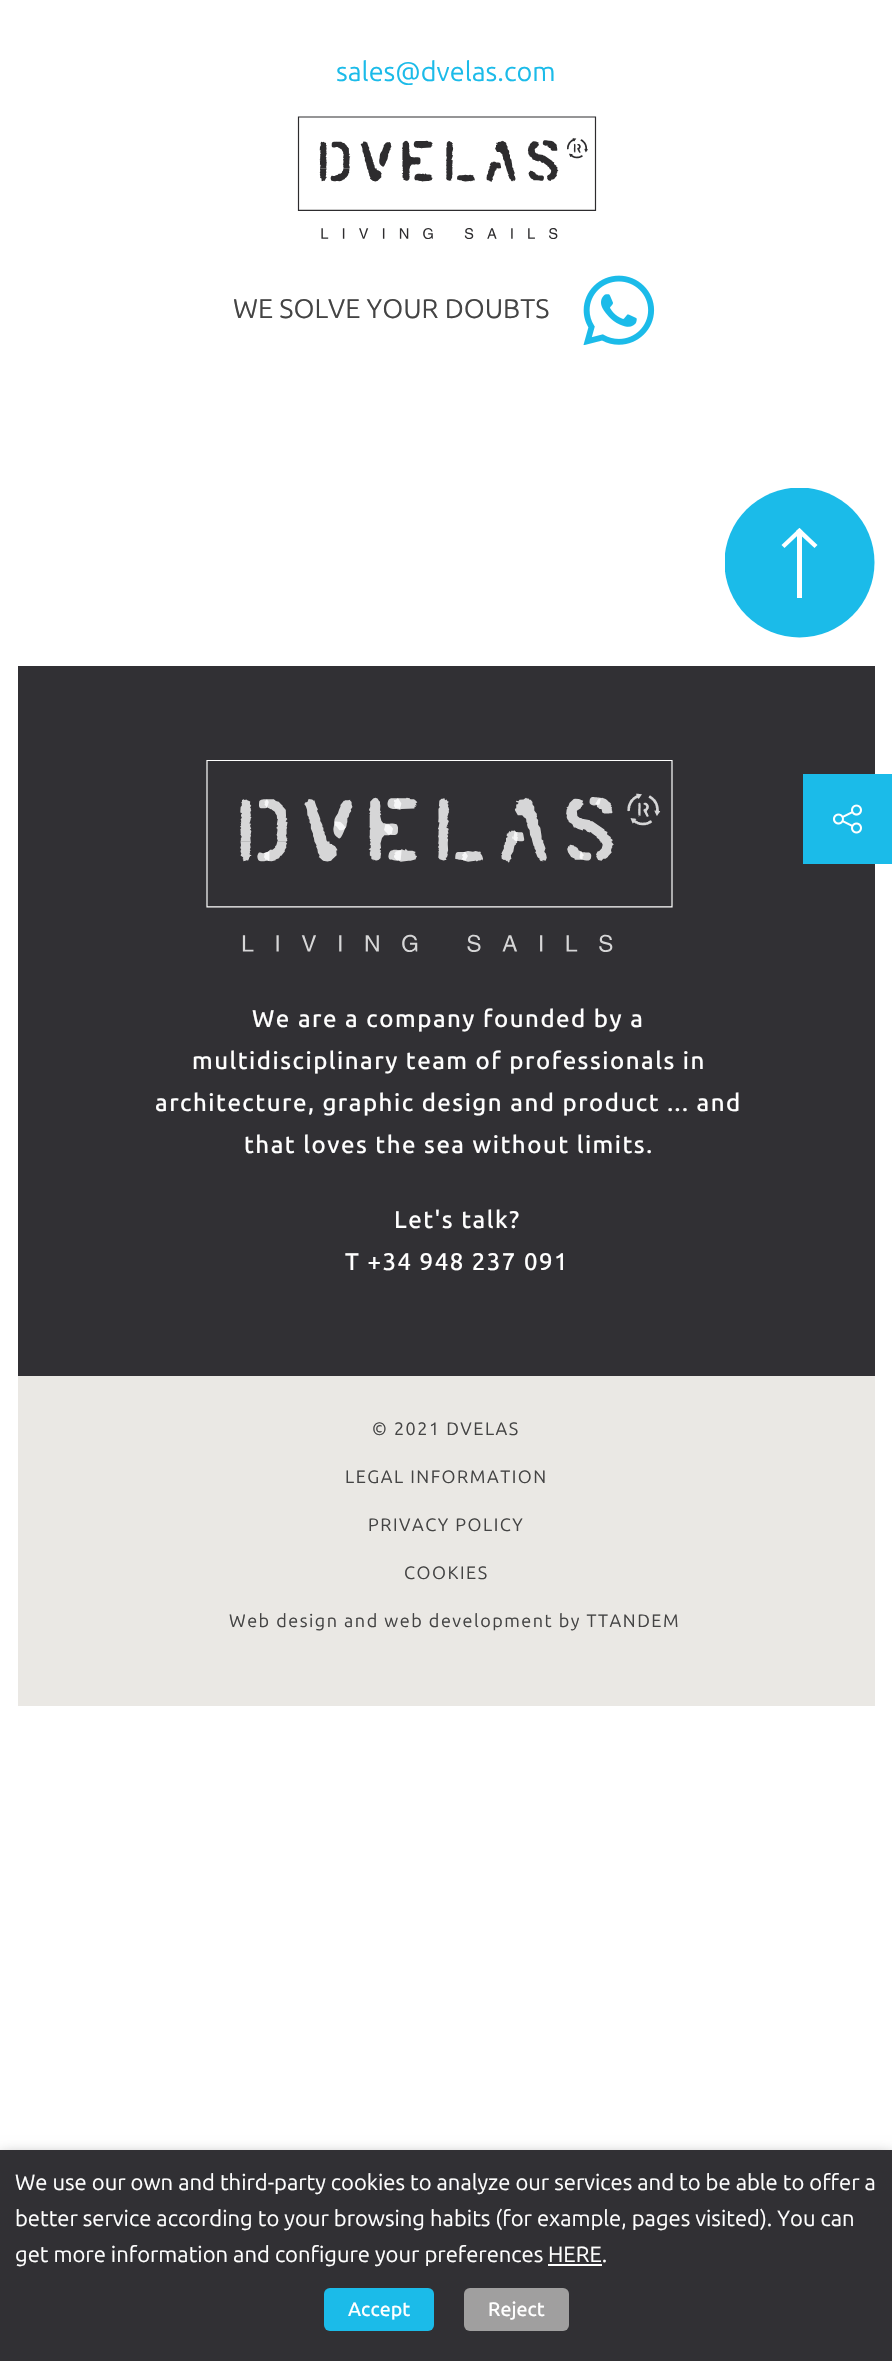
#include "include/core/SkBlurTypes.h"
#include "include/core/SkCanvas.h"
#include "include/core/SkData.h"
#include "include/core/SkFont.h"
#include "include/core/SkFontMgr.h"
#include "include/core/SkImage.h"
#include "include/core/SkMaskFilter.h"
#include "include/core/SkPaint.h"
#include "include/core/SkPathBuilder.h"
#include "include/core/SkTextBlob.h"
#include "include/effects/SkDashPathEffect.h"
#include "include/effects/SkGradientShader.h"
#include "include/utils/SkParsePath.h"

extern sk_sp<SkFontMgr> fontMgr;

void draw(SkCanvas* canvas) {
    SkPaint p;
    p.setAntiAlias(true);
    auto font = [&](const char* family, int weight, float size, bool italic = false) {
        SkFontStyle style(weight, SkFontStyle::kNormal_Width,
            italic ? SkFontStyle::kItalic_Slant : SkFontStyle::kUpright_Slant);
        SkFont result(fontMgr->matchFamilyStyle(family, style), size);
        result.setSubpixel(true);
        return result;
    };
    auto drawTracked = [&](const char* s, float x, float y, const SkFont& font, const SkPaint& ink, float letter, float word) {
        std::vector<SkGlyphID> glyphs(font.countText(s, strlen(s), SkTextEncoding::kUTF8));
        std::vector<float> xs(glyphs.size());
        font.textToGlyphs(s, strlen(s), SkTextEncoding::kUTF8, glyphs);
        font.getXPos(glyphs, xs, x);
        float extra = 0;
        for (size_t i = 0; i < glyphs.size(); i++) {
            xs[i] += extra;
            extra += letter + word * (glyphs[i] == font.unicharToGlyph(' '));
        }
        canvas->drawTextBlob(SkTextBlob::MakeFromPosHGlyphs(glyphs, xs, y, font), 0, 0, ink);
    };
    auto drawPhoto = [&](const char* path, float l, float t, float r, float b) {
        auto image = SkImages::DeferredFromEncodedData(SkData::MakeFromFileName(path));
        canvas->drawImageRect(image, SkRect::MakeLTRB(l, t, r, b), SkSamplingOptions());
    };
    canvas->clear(0xFFFFFFFF);
    auto font1 = font("Ubuntu", 400, 27);
    p.setColor(0xFF1BBBE9);
    canvas->drawString("sales@dvelas.com", 336, 81, font1, p);
    drawPhoto("media/1.png", 297, 116, 597, 239);
    drawPhoto("media/2.png", 583, 275, 655, 345);
    p.setColor(0xFF444444);
    canvas->drawString("WE SOLVE YOUR DOUBTS", 233, 318, font1, p);
    canvas->save();
    canvas->clipRect(SkRect::MakeLTRB(725, 488, 875, 638));
    p.setColor(0xFF1BBBE9);
    canvas->drawCircle(799.5f, 562.5f, 75, p);
    canvas->restore();
    p.setColor(0xFFFFFFFF);
    canvas->drawPath(SkPathBuilder().moveTo(796, 531).lineTo(799.5f, 528).lineTo(817.5f, 545).lineTo(814.5f, 548).close().detach(), p);
    canvas->drawPath(SkPathBuilder().moveTo(799.5f, 528).lineTo(802.5f, 531).lineTo(784.5f, 548).lineTo(781.5f, 545).close().detach(), p);
    canvas->drawRect(SkRect::MakeLTRB(797, 532, 802, 598), p);
    p.setColor(0xFF313034);
    canvas->drawRect(SkRect::MakeLTRB(18, 666, 875, 1376), p);
    drawPhoto("media/3.png", 206, 760, 673, 952);
    auto font2 = font("Ubuntu", 500, 24);
    p.setColor(0xFFFFFFFF);
    {
        const struct { const char* s; float x, y; } items[] = {
            {"We are a company founded by a", 252, 1027},
            {"multidisciplinary team of professionals in", 192, 1069},
            {"architecture, graphic design and product ... and", 155, 1111},
            {"that loves the sea without limits.", 244, 1153},
            {"Let's talk?", 394, 1228},
            {"T +34 948 237 091", 345, 1270},
        };
        for (auto [s, x, y] : items) {
            drawTracked(s, x, y, font2, p, 1.5f, 0);
        }
    }
    p.setColor(0xFFEAE8E4);
    canvas->drawRect(SkRect::MakeLTRB(18, 1376, 875, 1706), p);
    auto font3 = font("Ubuntu", 400, 18);
    p.setColor(0xFF444444);
    {
        const struct { const char* s; float x, y; } items[] = {
            {"© 2021 DVELAS", 372, 1435},
            {"LEGAL INFORMATION", 345, 1483},
            {"PRIVACY POLICY", 368, 1531},
            {"COOKIES", 404, 1579},
            {"Web design and web development by TTANDEM", 229, 1627},
        };
        for (auto [s, x, y] : items) {
            drawTracked(s, x, y, font3, p, 1.5f, 0);
        }
    }
    p.setColor(0xFF1BBBE9);
    canvas->drawRect(SkRect::MakeLTRB(803, 774, 892, 864), p);
    drawPhoto("media/4.png", 833, 804, 862, 834);
    p.setColor(0x80000000);
    p.setMaskFilter(SkMaskFilter::MakeBlur(kNormal_SkBlurStyle, 7.5f));
    canvas->drawRect(SkRect::MakeLTRB(0, 2157, 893, 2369), p);
    p.setMaskFilter(nullptr);
    p.setColor(0xFF313034);
    canvas->drawRect(SkRect::MakeLTRB(0, 2150, 892, 2361), p);
    auto font4 = font("Ubuntu", 400, 22);
    p.setColor(0xFFFFFFFF);
    {
        const struct { const char* s; float x, y; } items[] = {
            {"We use our own and third-party cookies to analyze our services and to be able to offer a", 15, 2190},
            {"better service according to your browsing habits (for example, pages visited). You can", 15, 2226},
            {"get more information and configure your preferences", 15, 2262},
            {"HERE.", 548, 2262},
        };
        for (auto [s, x, y] : items) {
            canvas->drawString(s, x, y, font4, p);
        }
    }
    canvas->drawRect(SkRect::MakeLTRB(548, 2264, 602, 2266), p);
    p.setColor(0xFF1BBBE9);
    canvas->drawRoundRect(SkRect::MakeLTRB(324, 2288, 434, 2331), 6, 6, p);
    auto font5 = font("Ubuntu", 500, 19.5f);
    p.setColor(0xFFFFFFFF);
    canvas->drawString("Accept", 348, 2316, font5, p);
    p.setColor(0xFFA09F9F);
    canvas->drawRoundRect(SkRect::MakeLTRB(464, 2288, 569, 2331), 6, 6, p);
    p.setColor(0xFFFFFFFF);
    canvas->drawString("Reject", 488, 2316, font5, p);
}
